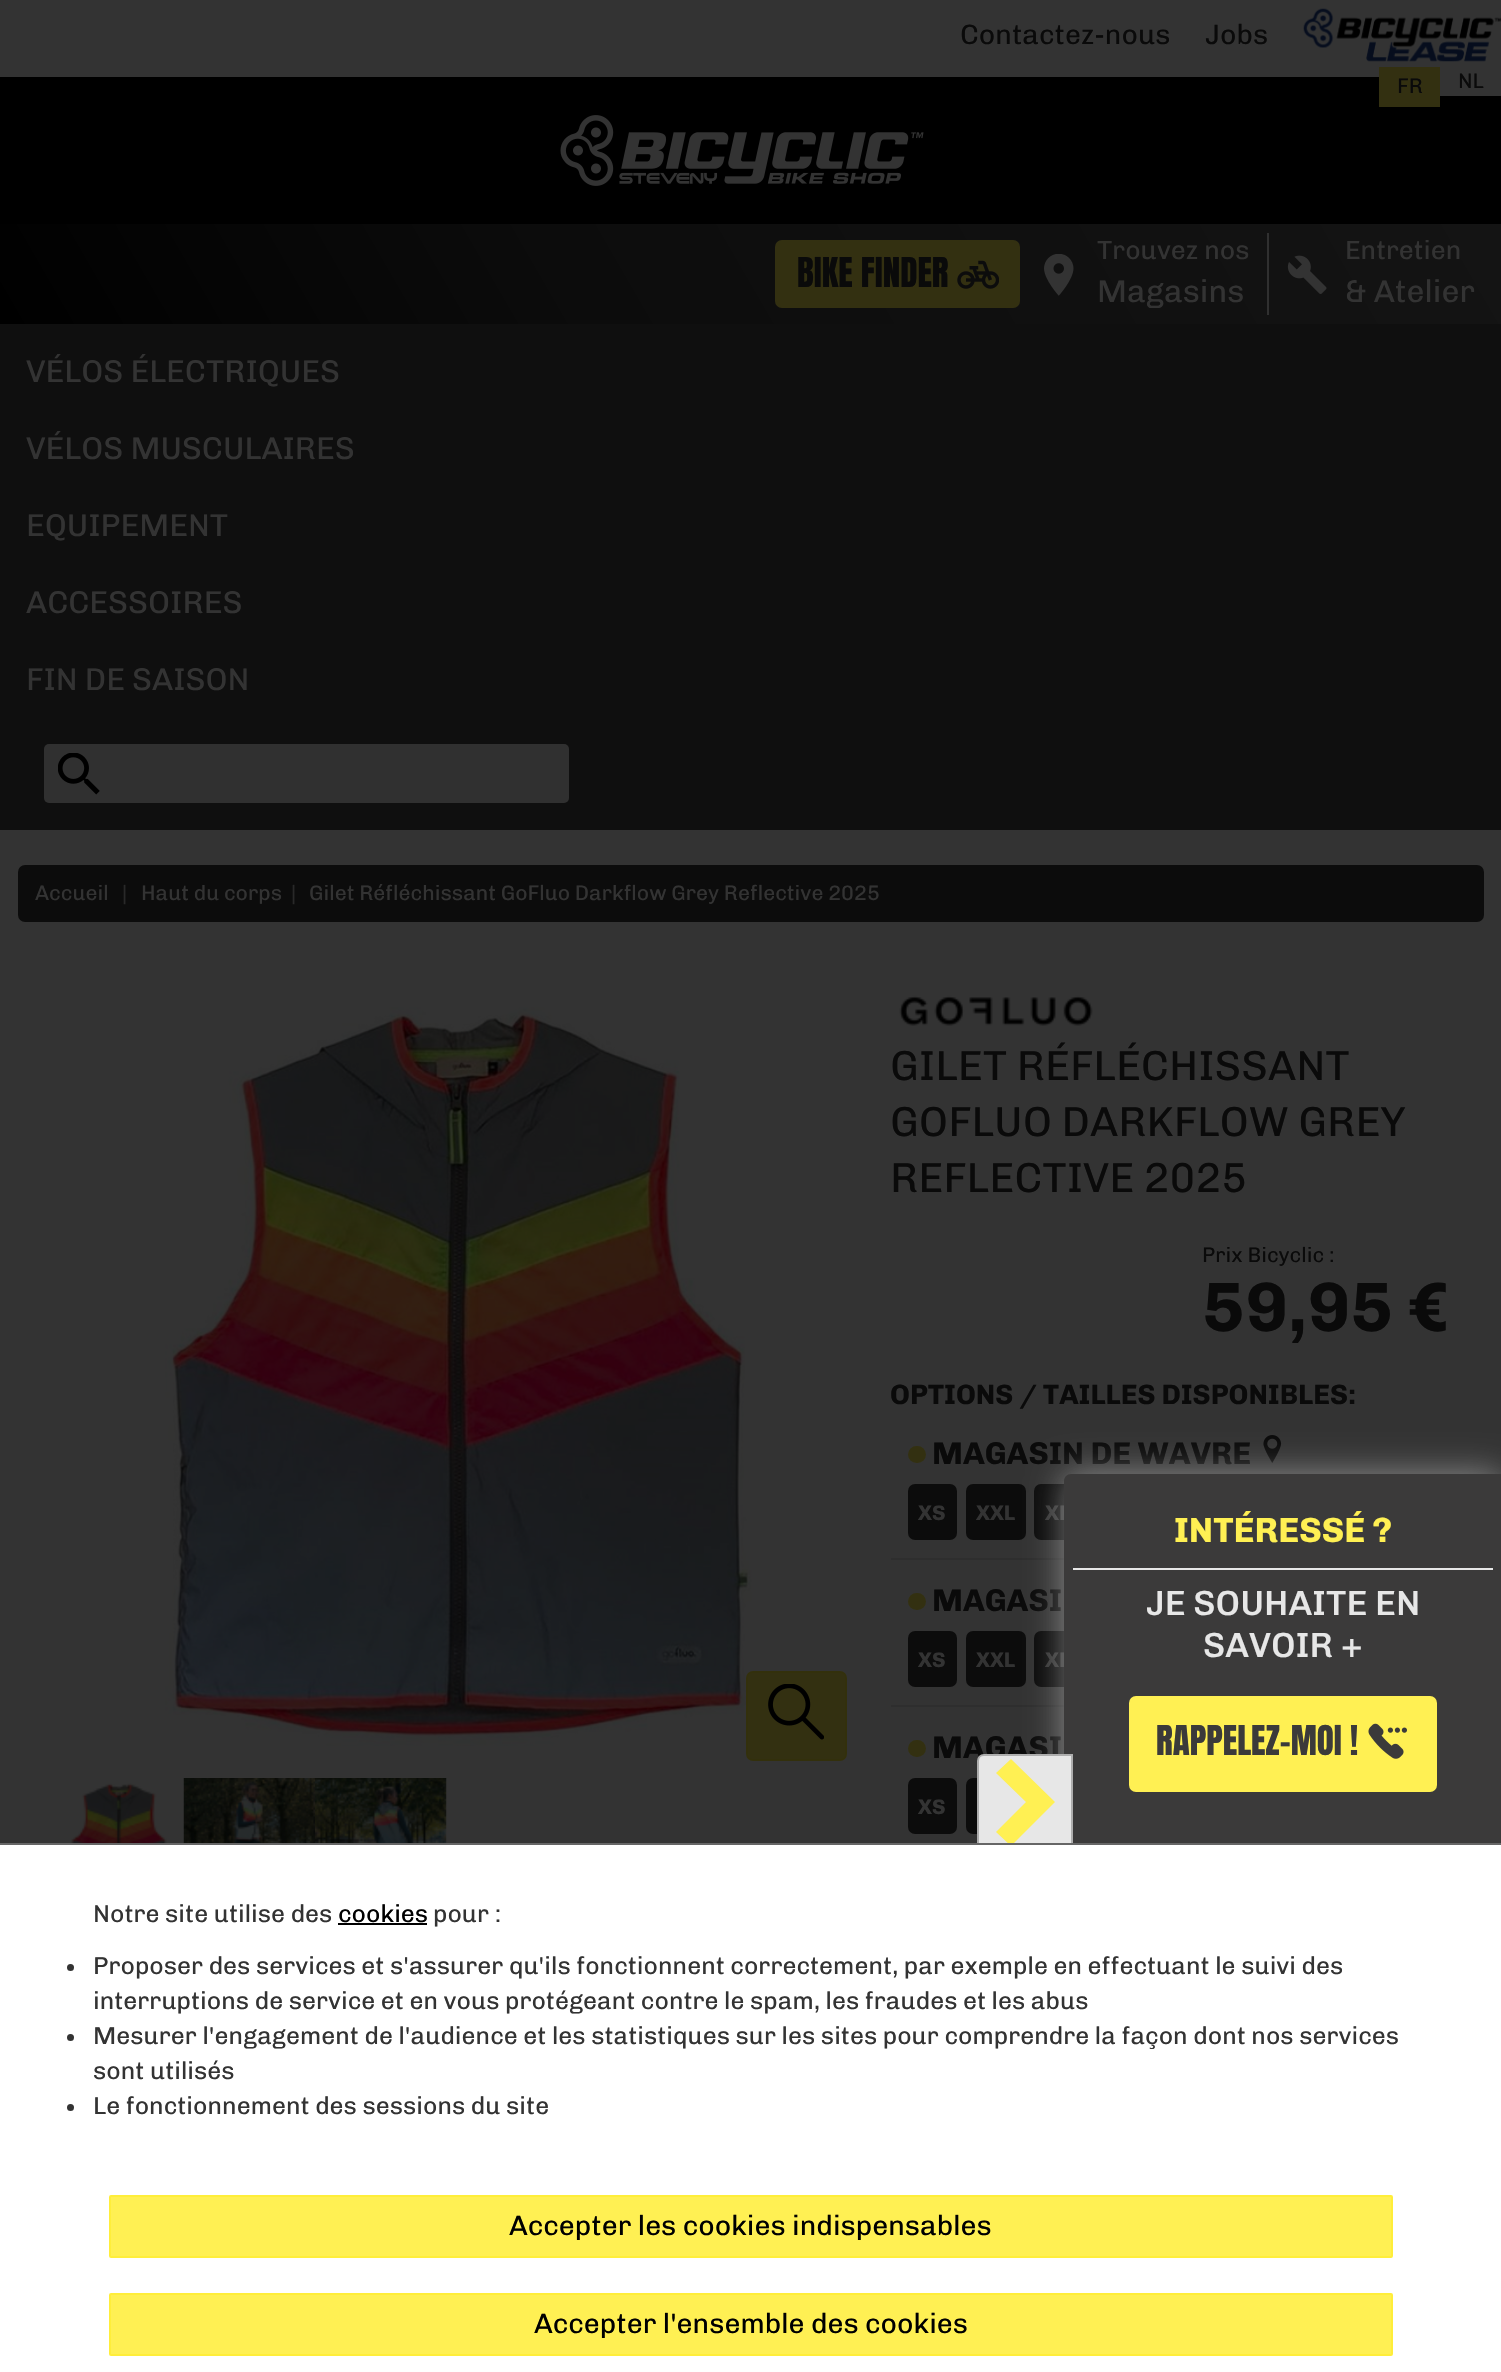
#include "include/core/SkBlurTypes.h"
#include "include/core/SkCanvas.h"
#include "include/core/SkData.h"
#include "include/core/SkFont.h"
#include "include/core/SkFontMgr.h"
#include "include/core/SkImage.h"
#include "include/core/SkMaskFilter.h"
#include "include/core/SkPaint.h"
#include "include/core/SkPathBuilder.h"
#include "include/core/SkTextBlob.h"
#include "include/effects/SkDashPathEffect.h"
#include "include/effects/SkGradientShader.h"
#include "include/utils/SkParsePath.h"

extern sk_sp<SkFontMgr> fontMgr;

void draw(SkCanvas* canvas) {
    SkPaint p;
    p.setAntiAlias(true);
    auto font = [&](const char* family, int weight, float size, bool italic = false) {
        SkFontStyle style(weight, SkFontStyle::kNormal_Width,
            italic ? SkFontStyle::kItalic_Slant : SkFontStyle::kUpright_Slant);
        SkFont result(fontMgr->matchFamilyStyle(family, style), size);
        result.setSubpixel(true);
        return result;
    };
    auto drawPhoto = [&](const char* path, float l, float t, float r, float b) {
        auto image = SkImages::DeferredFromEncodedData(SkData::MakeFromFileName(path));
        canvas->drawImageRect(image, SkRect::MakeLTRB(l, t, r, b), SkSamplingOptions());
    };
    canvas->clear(0xFF333333);
    auto font1 = font("Chivo", 400, 28);
    p.setColor(0xFF0A0A0A);
    canvas->drawString("Contactez-nous", 960, 44, font1, p);
    canvas->drawString("Jobs", 1205, 44, font1, p);
    drawPhoto("media/1.png", 1303, 8, 1501, 62);
    p.setColor(0xFF000000);
    canvas->drawRect(SkRect::MakeLTRB(0, 77, 1501, 224), p);
    drawPhoto("media/2.png", 560, 115, 924, 186);
    p.setColor(0xFF333011);
    canvas->drawRect(SkRect::MakeLTRB(1379, 67, 1440, 107), p);
    auto font2 = font("Chivo", 400, 21);
    p.setColor(0xFF0A0A0A);
    canvas->drawString("FR", 1397, 93, font2, p);
    p.setColor(0xFF333333);
    canvas->drawRect(SkRect::MakeLTRB(1440, 77, 1501, 96), p);
    p.setColor(0xFF0A0A0A);
    canvas->drawString("NL", 1458, 88, font2, p);
    {
        const SkColor colors[] = {0xFF000000, 0xFF0C0C0C, 0xFF141414};
        const float stops[] = {0, 0.38f, 1};
        const SkPoint ends[] = {{166, 611}, {1335, -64}};
        p.setShader(SkGradientShader::MakeLinear(ends, colors, stops, 3, SkTileMode::kClamp));
        p.setAlpha(255);
    }
    canvas->drawRect(SkRect::MakeLTRB(0, 224, 1501, 324), p);
    p.setShader(nullptr);
    p.setColor(0xFF333011);
    canvas->drawRoundRect(SkRect::MakeLTRB(775, 240, 1020, 308), 7, 7, p);
    auto font3 = font("Anton", 400, 35);
    p.setColor(0xFF0A0A0A);
    canvas->drawString("BIKE FINDER", 797, 287, font3, p);
    drawPhoto("media/3.png", 957, 260, 999, 289);
    p.setColor(0xFF303030);
    canvas->drawRect(SkRect::MakeLTRB(1267, 233, 1269, 315), p);
    drawPhoto("media/4.png", 1044, 254, 1074, 296);
    auto font4 = font("Chivo", 400, 26.25f);
    p.setColor(0xFF333333);
    canvas->drawString("Trouvez nos", 1097, 259, font4, p);
    auto font5 = font("Chivo", 400, 31.5f);
    canvas->drawString("Magasins", 1097, 302, font5, p);
    drawPhoto("media/5.png", 1287, 255, 1327, 294);
    canvas->drawString("Entretien", 1345, 259, font4, p);
    canvas->drawString("& Atelier", 1345, 302, font5, p);
    p.setColor(0xFF0F0F0F);
    canvas->drawRect(SkRect::MakeLTRB(0, 324, 1501, 830), p);
    p.setColor(0xFF333333);
    {
        const struct { const char* s; float x, y; } items[] = {
            {"VÉLOS ÉLECTRIQUES", 26, 382},
            {"VÉLOS MUSCULAIRES", 26, 459},
            {"EQUIPEMENT", 26, 536},
            {"ACCESSOIRES", 26, 613},
            {"FIN DE SAISON", 26, 690},
        };
        for (auto [s, x, y] : items) {
            canvas->drawString(s, x, y, font5, p);
        }
    }
    p.setColor(0xFF303030);
    canvas->drawRoundRect(SkRect::MakeLTRB(44, 744, 569, 803), 5, 5, p);
    drawPhoto("media/6.png", 58, 753, 100, 795);
    p.setColor(0xFF0C0C0C);
    canvas->drawRoundRect(SkRect::MakeLTRB(18, 865, 1484, 922), 7, 7, p);
    p.setColor(0xFF333333);
    canvas->drawString("Accueil", 35, 900, font2, p);
    p.setColor(0xFF292929);
    canvas->drawString("|", 122, 900, font2, p);
    p.setColor(0xFF333333);
    canvas->drawString("Haut du corps", 141, 900, font2, p);
    p.setColor(0xFF292929);
    canvas->drawString("|", 291, 900, font2, p);
    p.setColor(0xFF333333);
    canvas->drawString("Gilet Réfléchissant GoFluo Darkflow Grey Reflective 2025", 309, 900, font2, p);
    drawPhoto("media/7.png", 165, 1007, 752, 1746);
    p.setColor(0xFF333011);
    canvas->drawRoundRect(SkRect::MakeLTRB(747, 1672, 846, 1760), 6, 6, p);
    p.setStyle(SkPaint::kStroke_Style);
    p.setStrokeWidth(2);
    p.setColor(0xFF33300C);
    canvas->drawRoundRect(SkRect::MakeLTRB(747, 1672, 846, 1760), 6, 6, p);
    drawPhoto("media/8.png", 768, 1684, 824, 1740);
    drawPhoto("media/9.png", 71, 1783, 167, 1843);
    drawPhoto("media/10.png", 183, 1778, 315, 1843);
    drawPhoto("media/11.png", 315, 1778, 447, 1843);
    drawPhoto("media/12.png", 899, 995, 1093, 1026);
    auto font6 = font("Chivo", 400, 42);
    p.setStyle(SkPaint::kFill_Style);
    p.setColor(0xFF0A0A0A);
    {
        const struct { const char* s; float x, y; } items[] = {
            {"GILET RÉFLÉCHISSANT", 890, 1080},
            {"GOFLUO DARKFLOW GREY", 890, 1136},
            {"REFLECTIVE 2025", 890, 1192},
        };
        for (auto [s, x, y] : items) {
            canvas->drawString(s, x, y, font6, p);
        }
    }
    canvas->drawString("Prix Bicyclic :", 1202, 1262, font2, p);
    auto font7 = font("Chivo", 700, 70);
    canvas->drawString("59,95 €", 1202, 1331, font7, p);
    auto font8 = font("Chivo", 700, 28);
    canvas->drawString("OPTIONS / TAILLES DISPONIBLES:", 890, 1404, font8, p);
    p.setColor(0xFF333011);
    canvas->drawRoundRect(SkRect::MakeLTRB(908, 1446, 926, 1463), 8.5f, 8.5f, p);
    auto font9 = font("Chivo", 700, 31.5f);
    p.setColor(0xFF0A0A0A);
    canvas->drawString("MAGASIN DE WAVRE", 932, 1464, font9, p);
    drawPhoto("media/13.png", 1263, 1435, 1282, 1463);
    p.setColor(0xFF0C0C0C);
    canvas->drawRoundRect(SkRect::MakeLTRB(908, 1484, 957, 1540), 7, 7, p);
    auto font10 = font("Chivo", 700, 21);
    p.setColor(0xFF333333);
    canvas->drawString("XS", 918, 1520, font10, p);
    p.setColor(0xFF0C0C0C);
    canvas->drawRoundRect(SkRect::MakeLTRB(966, 1484, 1026, 1540), 7, 7, p);
    p.setColor(0xFF333333);
    canvas->drawString("XXL", 976, 1520, font10, p);
    p.setColor(0xFF0C0C0C);
    canvas->drawRoundRect(SkRect::MakeLTRB(1034, 1484, 1080, 1540), 7, 7, p);
    p.setColor(0xFF333333);
    canvas->drawString("XL", 1045, 1520, font10, p);
    p.setColor(0xFF2E2E2E);
    canvas->drawRect(SkRect::MakeLTRB(891, 1558, 1064, 1560), p);
    p.setColor(0xFF333011);
    canvas->drawRoundRect(SkRect::MakeLTRB(908, 1593, 926, 1610), 8.5f, 8.5f, p);
    p.setColor(0xFF0A0A0A);
    canvas->drawString("MAGASI", 932, 1611, font9, p);
    p.setColor(0xFF0C0C0C);
    canvas->drawRoundRect(SkRect::MakeLTRB(908, 1631, 957, 1687), 7, 7, p);
    p.setColor(0xFF333333);
    canvas->drawString("XS", 918, 1667, font10, p);
    p.setColor(0xFF0C0C0C);
    canvas->drawRoundRect(SkRect::MakeLTRB(966, 1631, 1026, 1687), 7, 7, p);
    p.setColor(0xFF333333);
    canvas->drawString("XXL", 976, 1667, font10, p);
    p.setColor(0xFF0C0C0C);
    canvas->drawRoundRect(SkRect::MakeLTRB(1034, 1631, 1080, 1687), 7, 7, p);
    p.setColor(0xFF333333);
    canvas->drawString("XL", 1045, 1667, font10, p);
    p.setColor(0xFF2E2E2E);
    canvas->drawRect(SkRect::MakeLTRB(891, 1705, 1064, 1707), p);
    p.setColor(0xFF333011);
    canvas->drawRoundRect(SkRect::MakeLTRB(908, 1740, 926, 1757), 8.5f, 8.5f, p);
    p.setColor(0xFF0A0A0A);
    canvas->drawString("MAGASI", 932, 1758, font9, p);
    p.setColor(0xFF0C0C0C);
    canvas->drawRoundRect(SkRect::MakeLTRB(908, 1778, 957, 1834), 7, 7, p);
    p.setColor(0xFF333333);
    canvas->drawString("XS", 918, 1814, font10, p);
    p.setColor(0xFF0C0C0C);
    canvas->drawRoundRect(SkRect::MakeLTRB(966, 1778, 1026, 1834), 7, 7, p);
    p.setColor(0x80E7E7E7);
    p.setMaskFilter(SkMaskFilter::MakeBlur(kNormal_SkBlurStyle, 17.5f));
    canvas->drawRoundRect(SkRect::MakeLTRB(1064, 1474, 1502, 2086), 7, 7, p);
    p.setMaskFilter(nullptr);
    p.setColor(0xFF3B3A3A);
    canvas->drawPath(SkPathBuilder().moveTo(1071, 1474).lineTo(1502, 1474).lineTo(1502, 2086).lineTo(1071, 2086).cubicTo(1067, 2086, 1064, 2083, 1064, 2079).lineTo(1064, 1481).cubicTo(1064, 1477, 1067, 1474, 1071, 1474).close().detach(), p);
    auto font11 = font("Chivo", 700, 35);
    p.setColor(0xFFFFF053);
    canvas->drawString("INTÉRESSÉ ?", 1174, 1542, font11, p);
    p.setColor(0xFFE7E7E7);
    canvas->drawRect(SkRect::MakeLTRB(1073, 1568, 1493, 1570), p);
    auto font12 = font("Chivo", 500, 35);
    canvas->drawString("JE SOUHAITE EN", 1146, 1615, font12, p);
    canvas->drawString("SAVOIR +", 1203, 1657, font12, p);
    p.setColor(0xFFFFF053);
    canvas->drawRoundRect(SkRect::MakeLTRB(1129, 1696, 1437, 1792), 7, 7, p);
    p.setColor(0xFF3B3A3A);
    canvas->drawString("RAPPELEZ-MOI !", 1156, 1755, font3, p);
    drawPhoto("media/14.png", 1368, 1723, 1407, 1759);
    p.setColor(0xFFE7E7E7);
    canvas->drawPath(SkPathBuilder().moveTo(984, 1755).lineTo(1072, 1755).lineTo(1072, 1849).lineTo(984, 1849).cubicTo(980.5f, 1849, 978, 1846.5f, 978, 1843).lineTo(978, 1761).cubicTo(978, 1757.5f, 980.5f, 1755, 984, 1755).close().detach(), p);
    p.setStyle(SkPaint::kStroke_Style);
    p.setColor(0xFFAEAEAE);
    canvas->drawPath(SkPathBuilder().moveTo(984, 1755).lineTo(1072, 1755).lineTo(1072, 1849).lineTo(984, 1849).cubicTo(980.5f, 1849, 978, 1846.5f, 978, 1843).lineTo(978, 1761).cubicTo(978, 1757.5f, 980.5f, 1755, 984, 1755).close().detach(), p);
    p.setStyle(SkPaint::kFill_Style);
    p.setColor(0xFFFFF053);
    canvas->drawPath(SkPathBuilder().moveTo(1011, 1846).lineTo(996, 1832).lineTo(1026, 1802).lineTo(996, 1773).lineTo(1011, 1759).lineTo(1055, 1802).close().detach(), p);
    p.setColor(0xFFFFFFFF);
    canvas->drawRect(SkRect::MakeLTRB(0, 1845, 1501, 2372), p);
    p.setColor(0xFF666666);
    canvas->drawRect(SkRect::MakeLTRB(0, 1843, 1501, 1845), p);
    auto font13 = font("Chivo", 400, 24.5f);
    p.setColor(0xFF333333);
    canvas->drawString("Notre site utilise des", 93, 1922, font13, p);
    p.setColor(0xFF000000);
    canvas->drawString("cookies", 338, 1922, font13, p);
    canvas->drawRect(SkRect::MakeLTRB(338, 1923, 427, 1925), p);
    p.setColor(0xFF333333);
    canvas->drawString("pour :", 433, 1922, font13, p);
    canvas->drawCircle(70.5f, 1967.5f, 3.5f, p);
    canvas->drawString("Proposer des services et s'assurer qu'ils fonctionnent correctement, par exemple en effectuant le suivi des", 93, 1974, font13, p);
    canvas->drawString("interruptions de service et en vous protégeant contre le spam, les fraudes et les abus", 93, 2009, font13, p);
    canvas->drawCircle(70.5f, 2037.5f, 3.5f, p);
    canvas->drawString("Mesurer l'engagement de l'audience et les statistiques sur les sites pour comprendre la façon dont nos services", 93, 2044, font13, p);
    canvas->drawString("sont utilisés", 93, 2079, font13, p);
    canvas->drawCircle(70.5f, 2107.5f, 3.5f, p);
    canvas->drawString("Le fonctionnement des sessions du site", 93, 2114, font13, p);
    p.setColor(0xFFFFF053);
    canvas->drawRoundRect(SkRect::MakeLTRB(110, 2196, 1392, 2257), 1, 1, p);
    p.setStyle(SkPaint::kStroke_Style);
    p.setColor(0xFFFFEE3A);
    canvas->drawRoundRect(SkRect::MakeLTRB(110, 2196, 1392, 2257), 1, 1, p);
    p.setStyle(SkPaint::kFill_Style);
    p.setColor(0xFF000000);
    canvas->drawString("Accepter les cookies indispensables", 509, 2235, font1, p);
    p.setColor(0xFFFFF053);
    canvas->drawRoundRect(SkRect::MakeLTRB(110, 2294, 1392, 2355), 1, 1, p);
    p.setStyle(SkPaint::kStroke_Style);
    p.setColor(0xFFFFEE3A);
    canvas->drawRoundRect(SkRect::MakeLTRB(110, 2294, 1392, 2355), 1, 1, p);
    p.setStyle(SkPaint::kFill_Style);
    p.setColor(0xFF000000);
    canvas->drawString("Accepter l'ensemble des cookies", 534, 2333, font1, p);
}
